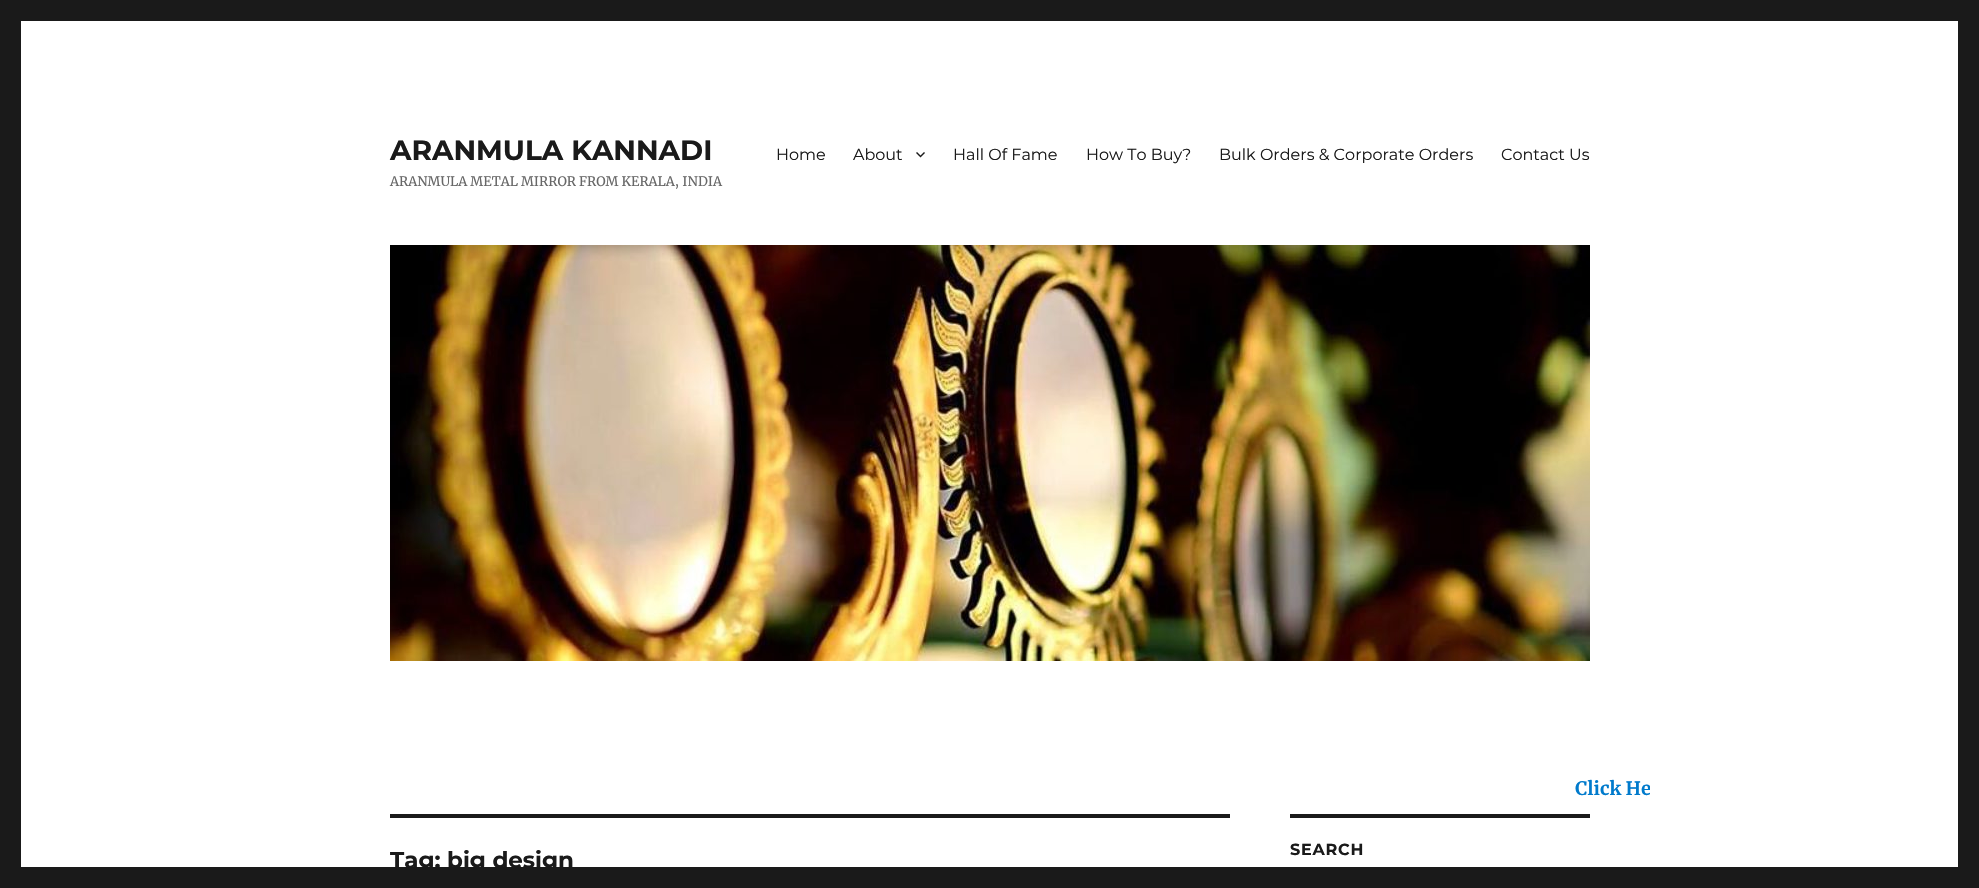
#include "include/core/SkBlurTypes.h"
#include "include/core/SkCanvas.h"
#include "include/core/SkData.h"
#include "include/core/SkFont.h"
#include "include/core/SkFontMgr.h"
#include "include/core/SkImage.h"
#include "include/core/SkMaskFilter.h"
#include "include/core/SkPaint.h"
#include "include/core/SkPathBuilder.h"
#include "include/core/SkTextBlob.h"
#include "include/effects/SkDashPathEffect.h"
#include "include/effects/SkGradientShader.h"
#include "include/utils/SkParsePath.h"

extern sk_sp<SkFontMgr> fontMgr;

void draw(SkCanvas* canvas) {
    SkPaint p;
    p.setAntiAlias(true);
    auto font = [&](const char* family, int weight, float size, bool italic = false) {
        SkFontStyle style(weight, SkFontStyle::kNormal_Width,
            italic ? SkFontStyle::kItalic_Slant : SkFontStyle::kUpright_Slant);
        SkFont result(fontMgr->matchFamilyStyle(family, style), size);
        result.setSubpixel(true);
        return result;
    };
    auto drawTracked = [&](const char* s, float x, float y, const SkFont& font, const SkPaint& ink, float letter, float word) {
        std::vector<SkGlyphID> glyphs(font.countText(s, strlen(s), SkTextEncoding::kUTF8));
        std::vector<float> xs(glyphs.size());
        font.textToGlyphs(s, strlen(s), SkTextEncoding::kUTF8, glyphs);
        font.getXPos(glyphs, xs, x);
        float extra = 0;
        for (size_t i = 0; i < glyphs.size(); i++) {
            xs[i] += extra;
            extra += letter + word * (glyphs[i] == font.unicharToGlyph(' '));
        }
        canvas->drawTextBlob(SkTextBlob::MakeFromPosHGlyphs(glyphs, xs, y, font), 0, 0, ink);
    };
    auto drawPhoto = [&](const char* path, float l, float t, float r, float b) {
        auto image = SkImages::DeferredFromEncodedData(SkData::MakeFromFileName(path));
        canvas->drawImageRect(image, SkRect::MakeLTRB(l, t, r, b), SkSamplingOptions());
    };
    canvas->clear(0xFF1A1A1A);
    p.setColor(0xFFFFFFFF);
    canvas->drawRect(SkRect::MakeLTRB(21, 21, 1958, 867), p);
    auto font1 = font("Montserrat", 100, 28);
    p.setColor(0xFF1A1A1A);
    canvas->drawString("ARANMULA KANNADI", 390, 160, font1, p);
    auto font2 = font("Merriweather", 400, 13);
    p.setColor(0xFF686868);
    canvas->drawString("ARANMULA METAL MIRROR FROM KERALA, INDIA", 390, 186, font2, p);
    auto font3 = font("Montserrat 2", 100, 16);
    p.setColor(0xFF1A1A1A);
    canvas->drawString("Home", 776, 160, font3, p);
    canvas->drawString("About", 853, 160, font3, p);
    drawPhoto("media/1.png", 916, 152, 925, 158);
    {
        const struct { const char* s; float x, y; } items[] = {
            {"Hall Of Fame", 953, 160},
            {"How To Buy?", 1086, 160},
            {"Bulk Orders & Corporate Orders", 1219, 160},
            {"Contact Us", 1501, 160},
        };
        for (auto [s, x, y] : items) {
            canvas->drawString(s, x, y, font3, p);
        }
    }
    drawPhoto("media/2.png", 390, 245, 1590, 661);
    canvas->save();
    canvas->clipRect(SkRect::MakeLTRB(330, 773, 1650, 806));
    auto font4 = font("Merriweather", 700, 18.5f);
    p.setColor(0xFF007ACC);
    canvas->drawString("Click He", 1575, 795, font4, p);
    canvas->restore();
    p.setColor(0xFF1A1A1A);
    canvas->drawRect(SkRect::MakeLTRB(390, 814, 1230, 818), p);
    auto font5 = font("Montserrat", 100, 23);
    canvas->drawString("Tag: big design", 390, 868, font5, p);
    canvas->drawRect(SkRect::MakeLTRB(1290, 814, 1590, 818), p);
    auto font6 = font("Montserrat", 100, 16);
    drawTracked("SEARCH", 1290, 855, font6, p, 0.75f, 0);
}
